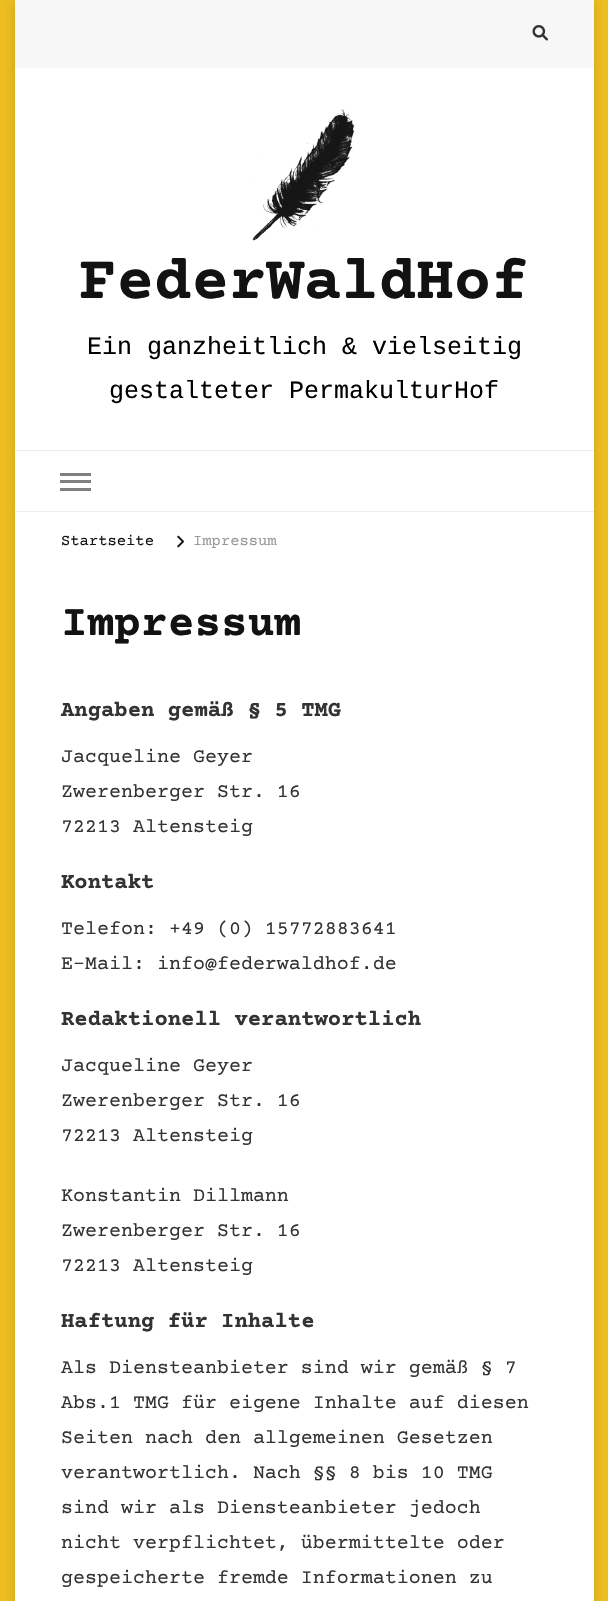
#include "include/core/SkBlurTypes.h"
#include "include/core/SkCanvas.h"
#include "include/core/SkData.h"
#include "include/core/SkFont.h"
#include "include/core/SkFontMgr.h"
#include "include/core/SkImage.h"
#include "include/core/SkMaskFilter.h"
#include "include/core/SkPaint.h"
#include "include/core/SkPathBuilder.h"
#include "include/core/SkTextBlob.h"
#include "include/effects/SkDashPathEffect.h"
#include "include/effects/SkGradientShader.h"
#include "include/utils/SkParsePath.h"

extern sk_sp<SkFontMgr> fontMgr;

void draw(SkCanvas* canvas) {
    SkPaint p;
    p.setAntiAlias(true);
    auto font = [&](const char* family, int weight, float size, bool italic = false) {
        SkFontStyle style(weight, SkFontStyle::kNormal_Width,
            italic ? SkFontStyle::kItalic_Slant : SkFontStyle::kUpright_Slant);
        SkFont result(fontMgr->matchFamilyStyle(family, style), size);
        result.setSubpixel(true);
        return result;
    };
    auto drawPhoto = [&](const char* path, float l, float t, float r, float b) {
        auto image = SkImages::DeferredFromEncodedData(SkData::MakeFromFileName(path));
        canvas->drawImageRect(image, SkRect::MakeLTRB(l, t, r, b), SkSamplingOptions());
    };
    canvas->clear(0xFFEFBF21);
    p.setColor(0x29000000);
    p.setMaskFilter(SkMaskFilter::MakeBlur(kNormal_SkBlurStyle, 6));
    canvas->drawRect(SkRect::MakeLTRB(15, 0, 594, 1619), p);
    p.setMaskFilter(nullptr);
    p.setColor(0xFFFFFFFF);
    canvas->drawRect(SkRect::MakeLTRB(15, 68, 594, 1601), p);
    p.setColor(0xFFF7F7F7);
    canvas->drawRect(SkRect::MakeLTRB(15, 0, 594, 68), p);
    drawPhoto("media/1.png", 532, 25, 548, 41);
    drawPhoto("media/2.png", 248, 109, 355, 241);
    auto font1 = font("Courier Prime", 700, 62.5f);
    p.setColor(0xFF121212);
    canvas->drawString("FederWaldHof", 79, 298, font1, p);
    auto font2 = font("Liberation Mono", 400, 25);
    p.setColor(0xFF000000);
    canvas->drawString("Ein ganzheitlich & vielseitig", 87, 354, font2, p);
    canvas->drawString("gestalteter PermakulturHof", 109, 398, font2, p);
    {
        const struct { float l, t, r, b; SkColor color; } items[] = {
            {15, 450, 594, 451, 0xFFEDEDED},
            {15, 511, 594, 512, 0xFFEDEDED},
            {60, 473, 91, 476, 0xFF808080},
            {60, 480, 91, 483, 0xFF808080},
            {60, 488, 91, 491, 0xFF808080},
        };
        for (auto [l, t, r, b, color] : items) {
            p.setColor(color);
            canvas->drawRect(SkRect::MakeLTRB(l, t, r, b), p);
        }
    }
    auto font3 = font("Courier Prime", 400, 15.5f);
    p.setColor(0xFF121212);
    canvas->drawString("Startseite", 61, 545, font3, p);
    drawPhoto("media/3.png", 177, 535, 184, 548);
    p.setColor(0xFF999999);
    canvas->drawString("Impressum", 193, 545, font3, p);
    auto font4 = font("Courier Prime", 700, 44.5f);
    p.setColor(0xFF121212);
    canvas->drawString("Impressum", 61, 635, font4, p);
    auto font5 = font("Courier Prime", 700, 22.25f);
    p.setColor(0xFF333333);
    canvas->drawString("Angaben gemäß § 5 TMG", 61, 716, font5, p);
    auto font6 = font("Courier Prime", 400, 20);
    {
        const struct { const char* s; float x, y; } items[] = {
            {"Jacqueline Geyer", 61, 762},
            {"Zwerenberger Str. 16", 61, 797},
            {"72213 Altensteig", 61, 832},
        };
        for (auto [s, x, y] : items) {
            canvas->drawString(s, x, y, font6, p);
        }
    }
    canvas->drawString("Kontakt", 61, 888, font5, p);
    canvas->drawString("Telefon: +49 (0) 15772883641", 61, 934, font6, p);
    canvas->drawString("E-Mail: info@federwaldhof.de", 61, 969, font6, p);
    canvas->drawString("Redaktionell verantwortlich", 61, 1025, font5, p);
    {
        const struct { const char* s; float x, y; } items[] = {
            {"Jacqueline Geyer", 61, 1071},
            {"Zwerenberger Str. 16", 61, 1106},
            {"72213 Altensteig", 61, 1141},
            {"Konstantin Dillmann", 61, 1201},
            {"Zwerenberger Str. 16", 61, 1236},
            {"72213 Altensteig", 61, 1271},
        };
        for (auto [s, x, y] : items) {
            canvas->drawString(s, x, y, font6, p);
        }
    }
    canvas->drawString("Haftung für Inhalte", 61, 1327, font5, p);
    {
        const struct { const char* s; float x, y; } items[] = {
            {"Als Diensteanbieter sind wir gemäß § 7", 61, 1373},
            {"Abs.1 TMG für eigene Inhalte auf diesen", 61, 1408},
            {"Seiten nach den allgemeinen Gesetzen", 61, 1443},
            {"verantwortlich. Nach §§ 8 bis 10 TMG", 61, 1478},
            {"sind wir als Diensteanbieter jedoch", 61, 1513},
            {"nicht verpflichtet, übermittelte oder", 61, 1548},
            {"gespeicherte fremde Informationen zu", 61, 1583},
        };
        for (auto [s, x, y] : items) {
            canvas->drawString(s, x, y, font6, p);
        }
    }
}
